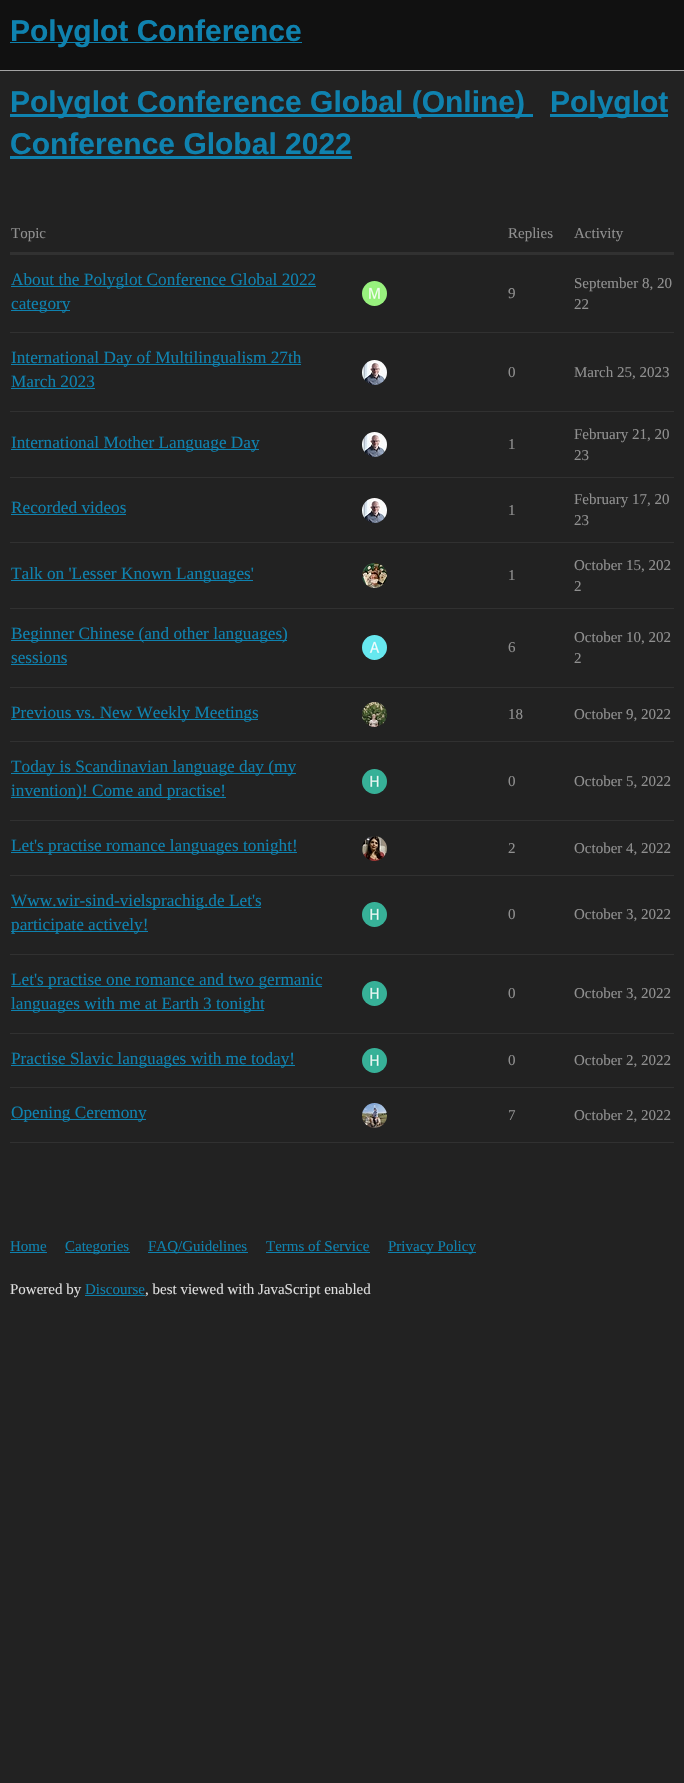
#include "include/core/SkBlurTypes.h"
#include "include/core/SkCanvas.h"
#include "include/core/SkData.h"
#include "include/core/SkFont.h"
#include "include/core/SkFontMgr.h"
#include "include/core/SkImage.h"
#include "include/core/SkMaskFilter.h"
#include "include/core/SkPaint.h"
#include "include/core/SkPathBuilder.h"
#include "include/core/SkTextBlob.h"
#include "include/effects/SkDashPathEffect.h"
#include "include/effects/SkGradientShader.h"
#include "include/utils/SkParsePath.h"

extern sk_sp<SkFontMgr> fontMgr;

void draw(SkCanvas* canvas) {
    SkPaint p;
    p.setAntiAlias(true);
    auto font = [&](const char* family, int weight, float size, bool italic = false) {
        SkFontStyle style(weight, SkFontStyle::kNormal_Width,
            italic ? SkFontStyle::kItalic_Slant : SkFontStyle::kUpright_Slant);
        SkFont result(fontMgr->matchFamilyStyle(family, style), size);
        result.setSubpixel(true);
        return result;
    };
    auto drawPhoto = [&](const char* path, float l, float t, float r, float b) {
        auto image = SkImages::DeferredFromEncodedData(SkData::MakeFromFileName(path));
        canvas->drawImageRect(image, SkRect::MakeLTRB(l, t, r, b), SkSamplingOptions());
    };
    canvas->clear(0xFF222222);
    {
        const struct { float l, t, r, b; SkColor color; } items[] = {
            {0, 0, 684, 70, 0xFF111111},
            {0, 70, 684, 71, 0xFFA4A4A4},
            {10, 42, 302, 43, 0xFF0F82AF},
        };
        for (auto [l, t, r, b, color] : items) {
            p.setColor(color);
            canvas->drawRect(SkRect::MakeLTRB(l, t, r, b), p);
        }
    }
    auto font1 = font("Liberation Sans", 700, 30);
    canvas->drawString("Polyglot Conference", 10, 41, font1, p);
    canvas->drawRect(SkRect::MakeLTRB(10, 114, 533, 117), p);
    canvas->drawString("Polyglot Conference Global (Online)", 10, 112, font1, p);
    canvas->drawRect(SkRect::MakeLTRB(550, 114, 668, 117), p);
    canvas->drawString("Polyglot", 550, 112, font1, p);
    canvas->drawString("Conference Global 2022", 10, 154, font1, p);
    canvas->drawRect(SkRect::MakeLTRB(10, 156, 352, 159), p);
    auto font2 = font("Liberation Serif", 400, 15);
    p.setColor(0xFF909090);
    {
        const struct { const char* s; float x, y; } items[] = {
            {"Topic", 11, 238},
            {"Replies", 508, 238},
            {"Activity", 574, 238},
        };
        for (auto [s, x, y] : items) {
            canvas->drawString(s, x, y, font2, p);
        }
    }
    {
        const struct { float l, t, r, b; SkColor color; } items[] = {
            {10, 252, 674, 255, 0xFF313131},
            {10, 332, 674, 333, 0xFF313131},
            {11, 286, 316, 287, 0xFF0F82AF},
        };
        for (auto [l, t, r, b, color] : items) {
            p.setColor(color);
            canvas->drawRect(SkRect::MakeLTRB(l, t, r, b), p);
        }
    }
    auto font3 = font("Liberation Serif", 400, 17.25f);
    canvas->drawString("About the Polyglot Conference Global 2022", 11, 285, font3, p);
    canvas->drawRect(SkRect::MakeLTRB(11, 310, 70, 311), p);
    canvas->drawString("category", 11, 309, font3, p);
    drawPhoto("media/1.png", 362, 281, 387, 306);
    p.setColor(0xFF909090);
    {
        const struct { const char* s; float x, y; } items[] = {
            {"9", 508, 298},
            {"September 8, 20", 574, 288},
            {"22", 574, 309},
        };
        for (auto [s, x, y] : items) {
            canvas->drawString(s, x, y, font2, p);
        }
    }
    p.setColor(0xFF313131);
    canvas->drawRect(SkRect::MakeLTRB(10, 411, 674, 412), p);
    p.setColor(0xFF0F82AF);
    canvas->drawRect(SkRect::MakeLTRB(11, 364, 301, 365), p);
    canvas->drawString("International Day of Multilingualism 27th", 11, 363, font3, p);
    canvas->drawString("March 2023", 11, 387, font3, p);
    canvas->drawRect(SkRect::MakeLTRB(11, 388, 95, 389), p);
    drawPhoto("media/2.png", 362, 360, 387, 385);
    p.setColor(0xFF909090);
    canvas->drawString("0", 508, 377, font2, p);
    canvas->drawString("March 25, 2023", 574, 377, font2, p);
    p.setColor(0xFF313131);
    canvas->drawRect(SkRect::MakeLTRB(10, 477, 674, 478), p);
    p.setColor(0xFF0F82AF);
    canvas->drawRect(SkRect::MakeLTRB(11, 449, 259, 450), p);
    canvas->drawString("International Mother Language Day", 11, 448, font3, p);
    drawPhoto("media/2.png", 362, 432, 387, 457);
    p.setColor(0xFF909090);
    {
        const struct { const char* s; float x, y; } items[] = {
            {"1", 508, 449},
            {"February 21, 20", 574, 439},
            {"23", 574, 460},
        };
        for (auto [s, x, y] : items) {
            canvas->drawString(s, x, y, font2, p);
        }
    }
    p.setColor(0xFF313131);
    canvas->drawRect(SkRect::MakeLTRB(10, 542, 674, 543), p);
    p.setColor(0xFF0F82AF);
    canvas->drawString("Recorded videos", 11, 513, font3, p);
    canvas->drawRect(SkRect::MakeLTRB(11, 514, 126, 515), p);
    drawPhoto("media/3.png", 362, 498, 387, 523);
    p.setColor(0xFF909090);
    {
        const struct { const char* s; float x, y; } items[] = {
            {"1", 508, 515},
            {"February 17, 20", 574, 504},
            {"23", 574, 525},
        };
        for (auto [s, x, y] : items) {
            canvas->drawString(s, x, y, font2, p);
        }
    }
    p.setColor(0xFF313131);
    canvas->drawRect(SkRect::MakeLTRB(10, 608, 674, 609), p);
    p.setColor(0xFF0F82AF);
    canvas->drawRect(SkRect::MakeLTRB(11, 580, 253, 581), p);
    canvas->drawString("Talk on 'Lesser Known Languages'", 11, 579, font3, p);
    drawPhoto("media/4.png", 362, 563, 387, 588);
    p.setColor(0xFF909090);
    {
        const struct { const char* s; float x, y; } items[] = {
            {"1", 508, 580},
            {"October 15, 202", 574, 570},
            {"2", 574, 591},
        };
        for (auto [s, x, y] : items) {
            canvas->drawString(s, x, y, font2, p);
        }
    }
    p.setColor(0xFF313131);
    canvas->drawRect(SkRect::MakeLTRB(10, 687, 674, 688), p);
    p.setColor(0xFF0F82AF);
    canvas->drawRect(SkRect::MakeLTRB(11, 640, 287, 641), p);
    canvas->drawString("Beginner Chinese (and other languages)", 11, 639, font3, p);
    canvas->drawString("sessions", 11, 663, font3, p);
    canvas->drawRect(SkRect::MakeLTRB(11, 664, 67, 665), p);
    drawPhoto("media/5.png", 362, 635, 387, 660);
    p.setColor(0xFF909090);
    {
        const struct { const char* s; float x, y; } items[] = {
            {"6", 508, 652},
            {"October 10, 202", 574, 642},
            {"2", 574, 663},
        };
        for (auto [s, x, y] : items) {
            canvas->drawString(s, x, y, font2, p);
        }
    }
    p.setColor(0xFF313131);
    canvas->drawRect(SkRect::MakeLTRB(10, 741, 674, 742), p);
    p.setColor(0xFF0F82AF);
    canvas->drawRect(SkRect::MakeLTRB(11, 719, 258, 720), p);
    canvas->drawString("Previous vs. New Weekly Meetings", 11, 718, font3, p);
    drawPhoto("media/6.png", 362, 702, 387, 727);
    p.setColor(0xFF909090);
    canvas->drawString("18", 508, 719, font2, p);
    canvas->drawString("October 9, 2022", 574, 719, font2, p);
    p.setColor(0xFF313131);
    canvas->drawRect(SkRect::MakeLTRB(10, 820, 674, 821), p);
    p.setColor(0xFF0F82AF);
    canvas->drawRect(SkRect::MakeLTRB(11, 773, 296, 774), p);
    canvas->drawString("Today is Scandinavian language day (my", 11, 772, font3, p);
    canvas->drawRect(SkRect::MakeLTRB(11, 797, 226, 798), p);
    canvas->drawString("invention)! Come and practise!", 11, 796, font3, p);
    drawPhoto("media/7.png", 362, 769, 387, 794);
    p.setColor(0xFF909090);
    canvas->drawString("0", 508, 786, font2, p);
    canvas->drawString("October 5, 2022", 574, 786, font2, p);
    p.setColor(0xFF313131);
    canvas->drawRect(SkRect::MakeLTRB(10, 875, 674, 876), p);
    p.setColor(0xFF0F82AF);
    canvas->drawRect(SkRect::MakeLTRB(11, 852, 297, 853), p);
    canvas->drawString("Let's practise romance languages tonight!", 11, 851, font3, p);
    drawPhoto("media/8.png", 362, 836, 387, 861);
    p.setColor(0xFF909090);
    canvas->drawString("2", 508, 853, font2, p);
    canvas->drawString("October 4, 2022", 574, 853, font2, p);
    p.setColor(0xFF313131);
    canvas->drawRect(SkRect::MakeLTRB(10, 954, 674, 955), p);
    p.setColor(0xFF0F82AF);
    canvas->drawRect(SkRect::MakeLTRB(11, 907, 261, 908), p);
    canvas->drawString("Www.wir-sind-vielsprachig.de Let's", 11, 906, font3, p);
    canvas->drawRect(SkRect::MakeLTRB(11, 931, 148, 932), p);
    canvas->drawString("participate actively!", 11, 930, font3, p);
    drawPhoto("media/7.png", 362, 902, 387, 927);
    p.setColor(0xFF909090);
    canvas->drawString("0", 508, 919, font2, p);
    canvas->drawString("October 3, 2022", 574, 919, font2, p);
    p.setColor(0xFF313131);
    canvas->drawRect(SkRect::MakeLTRB(10, 1033, 674, 1034), p);
    p.setColor(0xFF0F82AF);
    canvas->drawRect(SkRect::MakeLTRB(11, 986, 322, 987), p);
    canvas->drawString("Let's practise one romance and two germanic", 11, 985, font3, p);
    canvas->drawRect(SkRect::MakeLTRB(11, 1010, 264, 1011), p);
    canvas->drawString("languages with me at Earth 3 tonight", 11, 1009, font3, p);
    drawPhoto("media/7.png", 362, 981, 387, 1006);
    p.setColor(0xFF909090);
    canvas->drawString("0", 508, 998, font2, p);
    canvas->drawString("October 3, 2022", 574, 998, font2, p);
    p.setColor(0xFF313131);
    canvas->drawRect(SkRect::MakeLTRB(10, 1087, 674, 1088), p);
    p.setColor(0xFF0F82AF);
    canvas->drawRect(SkRect::MakeLTRB(11, 1065, 295, 1066), p);
    canvas->drawString("Practise Slavic languages with me today!", 11, 1064, font3, p);
    drawPhoto("media/7.png", 362, 1048, 387, 1073);
    p.setColor(0xFF909090);
    canvas->drawString("0", 508, 1065, font2, p);
    canvas->drawString("October 2, 2022", 574, 1065, font2, p);
    p.setColor(0xFF313131);
    canvas->drawRect(SkRect::MakeLTRB(10, 1142, 674, 1143), p);
    p.setColor(0xFF0F82AF);
    canvas->drawRect(SkRect::MakeLTRB(11, 1119, 146, 1120), p);
    canvas->drawString("Opening Ceremony", 11, 1118, font3, p);
    drawPhoto("media/9.png", 362, 1103, 387, 1128);
    p.setColor(0xFF909090);
    canvas->drawString("7", 508, 1120, font2, p);
    canvas->drawString("October 2, 2022", 574, 1120, font2, p);
    p.setColor(0xFF0F82AF);
    canvas->drawString("Home", 10, 1251, font2, p);
    canvas->drawRect(SkRect::MakeLTRB(10, 1252, 47, 1253), p);
    canvas->drawRect(SkRect::MakeLTRB(65, 1252, 130, 1253), p);
    canvas->drawString("Categories", 65, 1251, font2, p);
    canvas->drawRect(SkRect::MakeLTRB(148, 1252, 248, 1253), p);
    canvas->drawString("FAQ/Guidelines", 148, 1251, font2, p);
    canvas->drawString("Terms of Service", 266, 1251, font2, p);
    canvas->drawRect(SkRect::MakeLTRB(266, 1252, 370, 1253), p);
    canvas->drawRect(SkRect::MakeLTRB(388, 1252, 476, 1253), p);
    canvas->drawString("Privacy Policy", 388, 1251, font2, p);
    p.setColor(0xFFDDDDDD);
    canvas->drawString("Powered by", 10, 1294, font2, p);
    p.setColor(0xFF0F82AF);
    canvas->drawString("Discourse", 85, 1294, font2, p);
    canvas->drawRect(SkRect::MakeLTRB(85, 1295, 145, 1296), p);
    p.setColor(0xFFDDDDDD);
    canvas->drawString(", best viewed with JavaScript enabled", 145, 1294, font2, p);
}
